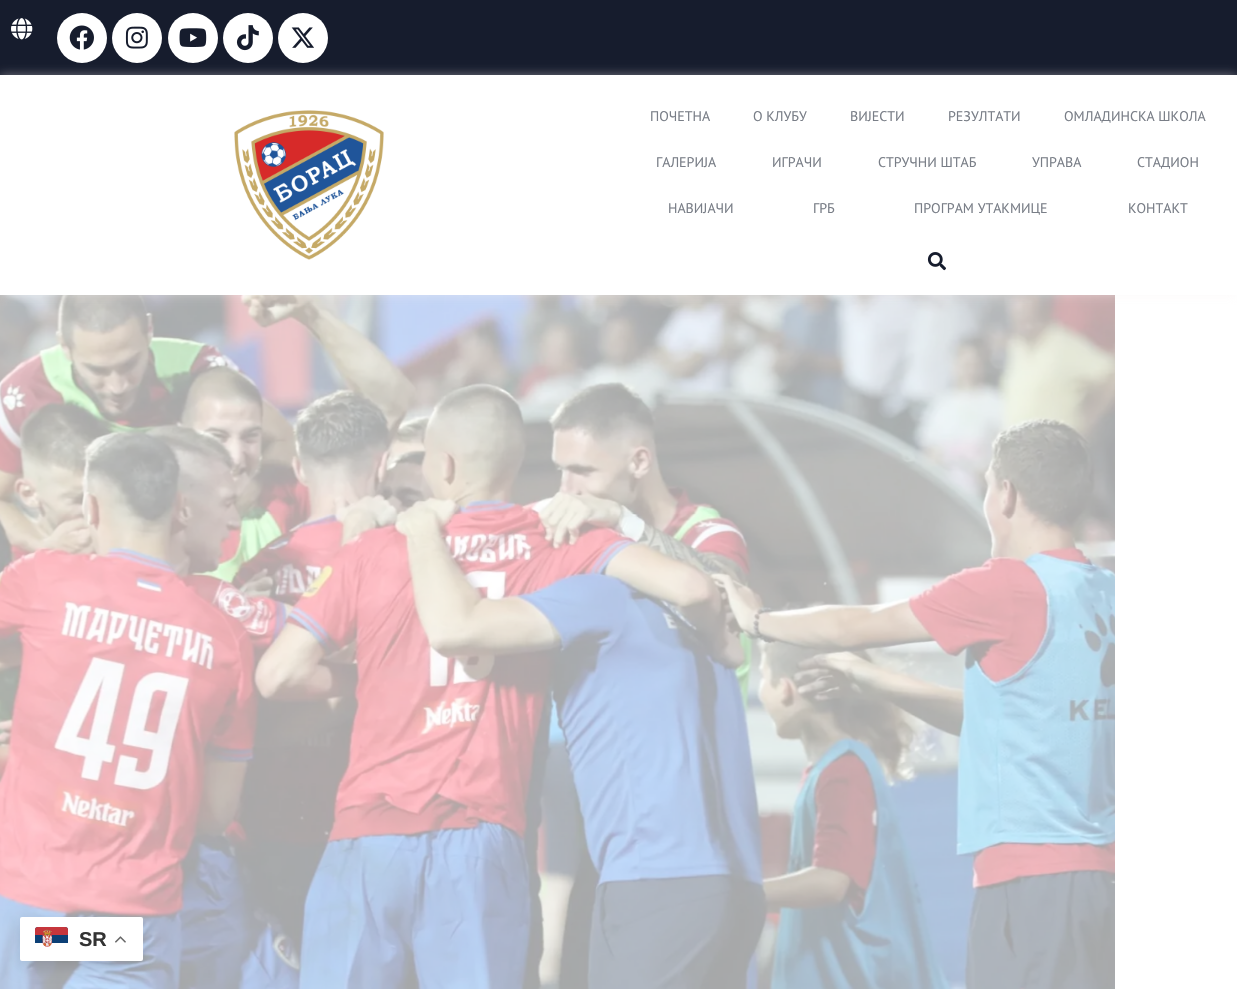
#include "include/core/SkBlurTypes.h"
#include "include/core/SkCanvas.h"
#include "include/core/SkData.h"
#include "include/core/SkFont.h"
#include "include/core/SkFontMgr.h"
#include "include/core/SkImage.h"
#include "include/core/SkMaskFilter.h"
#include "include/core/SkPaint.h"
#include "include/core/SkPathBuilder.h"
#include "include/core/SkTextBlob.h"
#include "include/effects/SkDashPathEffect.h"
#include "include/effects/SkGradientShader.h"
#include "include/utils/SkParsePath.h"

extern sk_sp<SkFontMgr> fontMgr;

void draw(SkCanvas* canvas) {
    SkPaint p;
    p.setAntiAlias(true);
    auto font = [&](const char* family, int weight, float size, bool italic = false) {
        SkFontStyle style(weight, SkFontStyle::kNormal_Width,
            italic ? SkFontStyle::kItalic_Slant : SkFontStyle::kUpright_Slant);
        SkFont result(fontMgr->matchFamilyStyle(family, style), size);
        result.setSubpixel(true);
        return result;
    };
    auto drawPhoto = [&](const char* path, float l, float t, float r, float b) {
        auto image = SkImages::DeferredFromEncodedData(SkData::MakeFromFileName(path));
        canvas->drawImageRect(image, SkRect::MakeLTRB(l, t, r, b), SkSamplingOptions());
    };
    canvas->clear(0xFFFFFFFF);
    p.setColor(0xFF161C2D);
    canvas->drawRect(SkRect::MakeLTRB(0, 0, 1237, 75), p);
    drawPhoto("media/1.png", 11, 18, 33, 40);
    p.setColor(0xFFFFFFFF);
    canvas->drawCircle(82, 38, 25, p);
    drawPhoto("media/2.png", 69, 25, 94, 50);
    canvas->drawCircle(137, 38, 25, p);
    drawPhoto("media/3.png", 125, 26, 148, 49);
    canvas->drawCircle(193, 38, 25, p);
    drawPhoto("media/4.png", 179, 28, 207, 47);
    canvas->drawCircle(248, 38, 25, p);
    drawPhoto("media/5.png", 236, 25, 259, 51);
    canvas->drawCircle(303, 38, 25, p);
    drawPhoto("media/6.png", 291, 27, 314, 48);
    drawPhoto("media/9.png", 0, 295, 1115, 989);
    canvas->save();
    canvas->clipPath(SkPathBuilder(SkPathFillType::kEvenOdd).moveTo(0, 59).lineTo(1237, 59).lineTo(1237, 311).lineTo(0, 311).close().moveTo(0, 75).lineTo(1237, 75).lineTo(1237, 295).lineTo(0, 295).close().detach(), true);
    p.setColor(0x6BF7F1F1);
    p.setMaskFilter(SkMaskFilter::MakeBlur(kNormal_SkBlurStyle, 5));
    canvas->drawRect(SkRect::MakeLTRB(0, 75, 1237, 295), p);
    p.setMaskFilter(nullptr);
    canvas->restore();
    drawPhoto("media/7.png", 234, 110, 384, 260);
    auto font1 = font("PT Sans", 400, 14);
    p.setColor(0xFF797E87);
    {
        const struct { const char* s; float x, y; } items[] = {
            {"ПОЧЕТНА", 650, 121},
            {"О КЛУБУ", 753, 121},
            {"ВИЈЕСТИ", 850, 121},
            {"РЕЗУЛТАТИ", 948, 121},
            {"ОМЛАДИНСКА ШКОЛА", 1064, 121},
            {"ГАЛЕРИЈА", 656, 167},
            {"ИГРАЧИ", 772, 167},
            {"СТРУЧНИ ШТАБ", 878, 167},
            {"УПРАВА", 1032, 167},
            {"СТАДИОН", 1137, 167},
            {"НАВИЈАЧИ", 668, 213},
            {"ГРБ", 813, 213},
            {"ПРОГРАМ УТАКМИЦЕ", 914, 213},
            {"КОНТАКТ", 1128, 213},
        };
        for (auto [s, x, y] : items) {
            canvas->drawString(s, x, y, font1, p);
        }
    }
    drawPhoto("media/8.png", 927, 252, 946, 271);
    p.setColor(0x26000000);
    p.setMaskFilter(SkMaskFilter::MakeBlur(kNormal_SkBlurStyle, 7.5f));
    canvas->drawRoundRect(SkRect::MakeLTRB(20, 922, 143, 966), 2, 2, p);
    p.setMaskFilter(nullptr);
    p.setColor(0xFFFFFFFF);
    canvas->drawRoundRect(SkRect::MakeLTRB(20, 917, 143, 961), 2, 2, p);
    drawPhoto("media/10.png", 35, 927, 68, 947);
    auto font2 = font("Liberation Sans", 700, 20);
    p.setColor(0xFF333333);
    canvas->drawString("SR", 79, 946, font2, p);
    drawPhoto("media/11.png", 115, 936, 126, 943);
}
